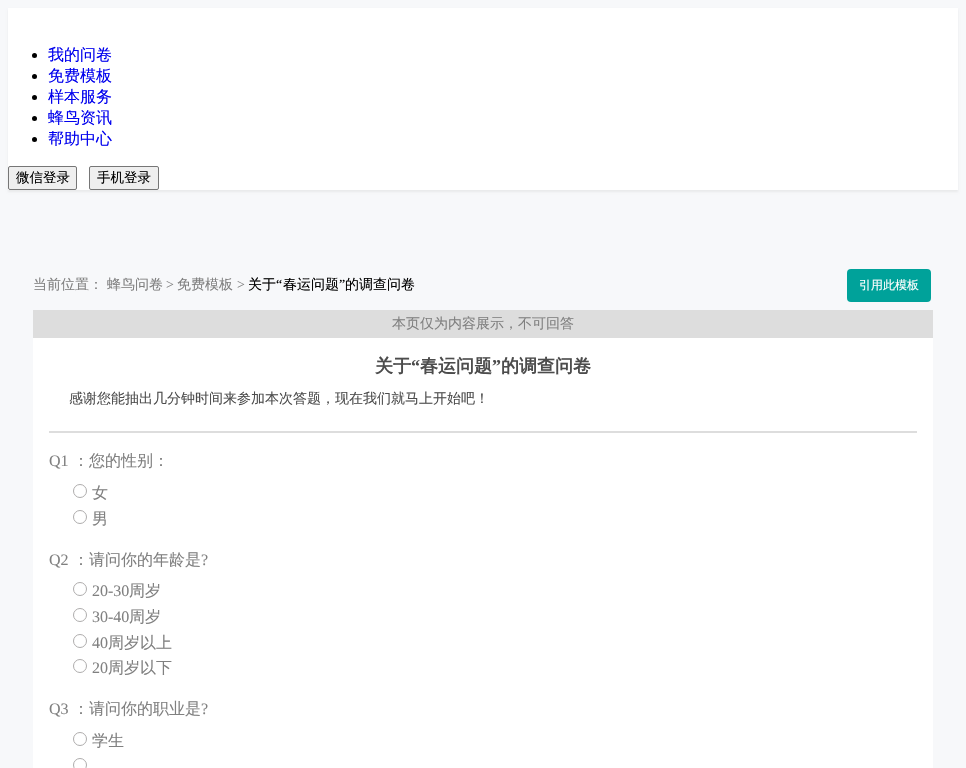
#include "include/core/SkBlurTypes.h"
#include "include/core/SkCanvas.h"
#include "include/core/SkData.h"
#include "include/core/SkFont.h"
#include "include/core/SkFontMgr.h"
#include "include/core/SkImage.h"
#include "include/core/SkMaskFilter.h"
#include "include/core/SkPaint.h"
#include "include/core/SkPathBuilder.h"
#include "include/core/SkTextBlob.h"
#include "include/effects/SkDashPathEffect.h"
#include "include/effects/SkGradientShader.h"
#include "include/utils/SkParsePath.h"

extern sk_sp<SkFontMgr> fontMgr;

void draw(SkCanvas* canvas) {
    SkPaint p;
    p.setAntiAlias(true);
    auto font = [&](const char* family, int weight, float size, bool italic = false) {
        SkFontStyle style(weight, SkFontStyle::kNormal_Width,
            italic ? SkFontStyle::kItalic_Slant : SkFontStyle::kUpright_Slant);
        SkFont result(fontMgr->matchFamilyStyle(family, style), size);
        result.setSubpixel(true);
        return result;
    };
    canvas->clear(0xFFF7F8FA);
    p.setColor(0xFFE9EAEB);
    p.setMaskFilter(SkMaskFilter::MakeBlur(kNormal_SkBlurStyle, 1));
    canvas->drawRect(SkRect::MakeLTRB(8, 10, 958, 192), p);
    p.setMaskFilter(nullptr);
    p.setColor(0xFFFFFFFF);
    canvas->drawRect(SkRect::MakeLTRB(8, 8, 958, 190), p);
    p.setColor(0xFF000000);
    canvas->drawCircle(34.5f, 55.5f, 2.5f, p);
    auto font1 = font("WenQuanYi Zen Hei", 500, 16);
    p.setColor(0xFF0000EE);
    canvas->drawString("我的问卷", 48, 60, font1, p);
    p.setColor(0xFF000000);
    canvas->drawCircle(34.5f, 76.5f, 2.5f, p);
    p.setColor(0xFF0000EE);
    canvas->drawString("免费模板", 48, 81, font1, p);
    p.setColor(0xFF000000);
    canvas->drawCircle(34.5f, 97.5f, 2.5f, p);
    p.setColor(0xFF0000EE);
    canvas->drawString("样本服务", 48, 102, font1, p);
    p.setColor(0xFF000000);
    canvas->drawCircle(34.5f, 118.5f, 2.5f, p);
    p.setColor(0xFF0000EE);
    canvas->drawString("蜂鸟资讯", 48, 123, font1, p);
    p.setColor(0xFF000000);
    canvas->drawCircle(34.5f, 139.5f, 2.5f, p);
    p.setColor(0xFF0000EE);
    canvas->drawString("帮助中心", 48, 144, font1, p);
    p.setColor(0xFFEFEFEF);
    canvas->drawRoundRect(SkRect::MakeLTRB(8.5f, 166.5f, 76.5f, 189.5f), 1.5f, 1.5f, p);
    p.setStyle(SkPaint::kStroke_Style);
    p.setStrokeWidth(1);
    p.setColor(0xFF767676);
    canvas->drawRoundRect(SkRect::MakeLTRB(8.5f, 166.5f, 76.5f, 189.5f), 1.5f, 1.5f, p);
    auto font2 = font("WenQuanYi Zen Hei", 500, 13.5f);
    p.setStyle(SkPaint::kFill_Style);
    p.setColor(0xFF000000);
    canvas->drawString("微信登录", 16, 182, font2, p);
    p.setColor(0xFFEFEFEF);
    canvas->drawRoundRect(SkRect::MakeLTRB(89.5f, 166.5f, 158.5f, 189.5f), 1.5f, 1.5f, p);
    p.setStyle(SkPaint::kStroke_Style);
    p.setColor(0xFF767676);
    canvas->drawRoundRect(SkRect::MakeLTRB(89.5f, 166.5f, 158.5f, 189.5f), 1.5f, 1.5f, p);
    p.setStyle(SkPaint::kFill_Style);
    p.setColor(0xFF000000);
    canvas->drawString("手机登录", 97, 182, font2, p);
    auto font3 = font("WenQuanYi Zen Hei", 500, 14);
    p.setColor(0xFF808080);
    canvas->drawString("当前位置：", 33, 289, font3, p);
    canvas->drawString("蜂鸟问卷", 107, 289, font3, p);
    auto font4 = font("Liberation Serif", 400, 14);
    canvas->drawString(">", 166, 289, font4, p);
    canvas->drawString("免费模板", 177, 289, font3, p);
    canvas->drawString(">", 237, 289, font4, p);
    p.setColor(0xFF000000);
    canvas->drawString("关于", 248, 289, font3, p);
    canvas->drawString("“", 276, 289, font4, p);
    canvas->drawString("春运问题", 283, 289, font3, p);
    canvas->drawString("”", 339, 289, font4, p);
    canvas->drawString("的调查问卷", 345, 289, font3, p);
    p.setColor(0xFF00A29A);
    canvas->drawRoundRect(SkRect::MakeLTRB(847, 269, 931, 302), 4, 4, p);
    auto font5 = font("WenQuanYi Zen Hei", 500, 12);
    p.setColor(0xFFFFFFFF);
    canvas->drawString("引用此模板", 859, 289, font5, p);
    canvas->drawRect(SkRect::MakeLTRB(33, 338, 933, 768), p);
    p.setColor(0xFFDDDDDD);
    canvas->drawRect(SkRect::MakeLTRB(33, 310, 933, 338), p);
    p.setColor(0xFF808080);
    canvas->drawString("本页仅为内容展示，不可回答", 392, 328, font3, p);
    auto font6 = font("WenQuanYi Zen Hei", 700, 18);
    p.setColor(0xFF4C4C4C);
    canvas->drawString("关于", 375, 372, font6, p);
    auto font7 = font("Liberation Serif", 700, 18);
    canvas->drawString("“", 411, 372, font7, p);
    canvas->drawString("春运问题", 420, 372, font6, p);
    canvas->drawString("”", 492, 372, font7, p);
    canvas->drawString("的调查问卷", 501, 372, font6, p);
    canvas->drawString("感谢您能抽出几分钟时间来参加本次答题，现在我们就马上开始吧！", 69, 403, font3, p);
    p.setColor(0xFFDDDDDD);
    canvas->drawRect(SkRect::MakeLTRB(49, 431, 917, 433), p);
    auto font8 = font("Liberation Serif", 400, 16);
    p.setColor(0xFF808080);
    canvas->drawString("Q1", 49, 466, font8, p);
    canvas->drawString("：您的性别：", 73, 466, font1, p);
    p.setStyle(SkPaint::kStroke_Style);
    p.setColor(0xFFAEACAC);
    canvas->drawCircle(80, 491, 6.5f, p);
    p.setStyle(SkPaint::kFill_Style);
    p.setColor(0xFF808080);
    canvas->drawString("女", 92, 498, font1, p);
    p.setStyle(SkPaint::kStroke_Style);
    p.setColor(0xFFAEACAC);
    canvas->drawCircle(80, 517, 6.5f, p);
    p.setStyle(SkPaint::kFill_Style);
    p.setColor(0xFF808080);
    canvas->drawString("男", 92, 524, font1, p);
    canvas->drawString("Q2", 49, 565, font8, p);
    canvas->drawString("：请问你的年龄是", 73, 565, font1, p);
    canvas->drawString("?", 201, 565, font8, p);
    p.setStyle(SkPaint::kStroke_Style);
    p.setColor(0xFFAEACAC);
    canvas->drawCircle(80, 589, 6.5f, p);
    p.setStyle(SkPaint::kFill_Style);
    p.setColor(0xFF808080);
    canvas->drawString("20-30", 92, 596, font8, p);
    canvas->drawString("周岁", 129, 596, font1, p);
    p.setStyle(SkPaint::kStroke_Style);
    p.setColor(0xFFAEACAC);
    canvas->drawCircle(80, 615, 6.5f, p);
    p.setStyle(SkPaint::kFill_Style);
    p.setColor(0xFF808080);
    canvas->drawString("30-40", 92, 622, font8, p);
    canvas->drawString("周岁", 129, 622, font1, p);
    p.setStyle(SkPaint::kStroke_Style);
    p.setColor(0xFFAEACAC);
    canvas->drawCircle(80, 641, 6.5f, p);
    p.setStyle(SkPaint::kFill_Style);
    p.setColor(0xFF808080);
    canvas->drawString("40", 92, 648, font8, p);
    canvas->drawString("周岁以上", 108, 648, font1, p);
    p.setStyle(SkPaint::kStroke_Style);
    p.setColor(0xFFAEACAC);
    canvas->drawCircle(80, 666, 6.5f, p);
    p.setStyle(SkPaint::kFill_Style);
    p.setColor(0xFF808080);
    canvas->drawString("20", 92, 673, font8, p);
    canvas->drawString("周岁以下", 108, 673, font1, p);
    canvas->drawString("Q3", 49, 714, font8, p);
    canvas->drawString("：请问你的职业是", 73, 714, font1, p);
    canvas->drawString("?", 201, 714, font8, p);
    p.setStyle(SkPaint::kStroke_Style);
    p.setColor(0xFFAEACAC);
    canvas->drawCircle(80, 739, 6.5f, p);
    p.setStyle(SkPaint::kFill_Style);
    p.setColor(0xFF808080);
    canvas->drawString("学生", 92, 746, font1, p);
    p.setStyle(SkPaint::kStroke_Style);
    p.setColor(0xFFAEACAC);
    canvas->drawCircle(80, 765, 6.5f, p);
}
